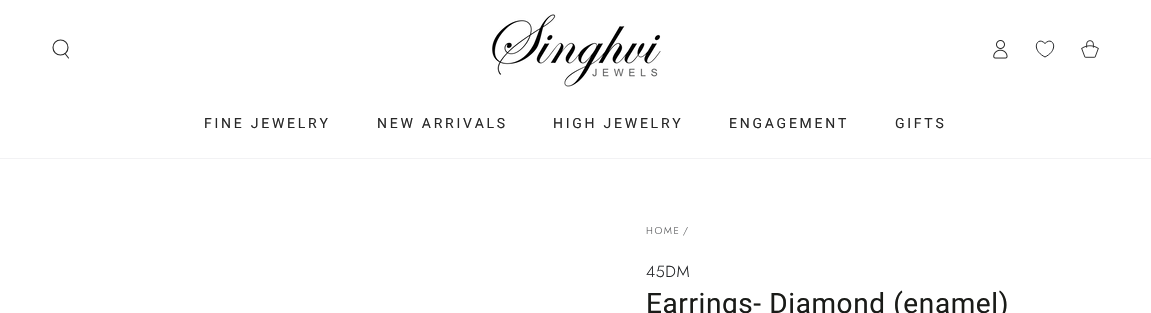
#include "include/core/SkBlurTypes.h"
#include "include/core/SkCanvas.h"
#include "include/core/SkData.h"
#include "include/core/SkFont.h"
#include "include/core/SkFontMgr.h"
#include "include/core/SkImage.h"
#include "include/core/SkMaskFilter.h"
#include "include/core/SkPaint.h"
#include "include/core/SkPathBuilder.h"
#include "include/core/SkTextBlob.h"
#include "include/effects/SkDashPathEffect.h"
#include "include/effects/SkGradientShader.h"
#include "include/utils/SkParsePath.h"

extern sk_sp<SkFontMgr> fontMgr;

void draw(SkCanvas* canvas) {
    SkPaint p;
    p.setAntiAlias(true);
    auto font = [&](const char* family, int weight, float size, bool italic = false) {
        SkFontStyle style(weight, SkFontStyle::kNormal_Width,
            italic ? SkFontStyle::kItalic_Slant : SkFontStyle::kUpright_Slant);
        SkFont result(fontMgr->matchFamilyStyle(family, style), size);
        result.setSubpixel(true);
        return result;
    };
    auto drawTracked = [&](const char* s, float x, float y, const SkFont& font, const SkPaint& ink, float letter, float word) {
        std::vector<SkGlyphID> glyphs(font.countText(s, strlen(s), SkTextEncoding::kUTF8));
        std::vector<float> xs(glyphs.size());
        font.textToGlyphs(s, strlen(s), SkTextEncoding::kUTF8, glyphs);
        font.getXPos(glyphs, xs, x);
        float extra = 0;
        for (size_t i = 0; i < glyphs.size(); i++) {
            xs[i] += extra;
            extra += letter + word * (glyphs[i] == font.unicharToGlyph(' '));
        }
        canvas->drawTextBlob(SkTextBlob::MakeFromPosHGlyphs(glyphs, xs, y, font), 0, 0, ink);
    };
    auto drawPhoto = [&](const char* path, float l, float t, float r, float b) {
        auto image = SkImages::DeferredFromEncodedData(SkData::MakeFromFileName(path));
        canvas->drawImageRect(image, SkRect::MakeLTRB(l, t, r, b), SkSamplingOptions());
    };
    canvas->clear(0xFFFFFFFF);
    p.setColor(0xFFF2F2F4);
    canvas->drawRect(SkRect::MakeLTRB(0, 158, 1151, 159), p);
    p.setStyle(SkPaint::kStroke_Style);
    p.setStrokeWidth(1.1f);
    p.setColor(0xFF282828);
    canvas->drawCircle(60.5f, 47.5f, 7.5f, p);
    p.setStrokeCap(SkPaint::kRound_Cap);
    canvas->drawPath(SkPathBuilder().moveTo(65, 53.5f).lineTo(68.5f, 58).detach(), p);
    drawPhoto("media/1.png", 492, 14, 661, 87);
    drawPhoto("media/2.png", 993, 40, 1008, 59);
    p.setStrokeWidth(1);
    p.setStrokeCap(SkPaint::kButt_Cap);
    p.setColor(0xFF212326);
    canvas->drawPath(SkPathBuilder().moveTo(1045, 57).cubicTo(1030, 49.5f, 1037.5f, 35.5f, 1045, 43.5f).cubicTo(1052.5f, 35.5f, 1060, 49.5f, 1045, 57).close().detach(), p);
    drawPhoto("media/3.png", 1081, 40, 1099, 58);
    auto font1 = font("Roboto", 400, 14);
    p.setStyle(SkPaint::kFill_Style);
    p.setColor(0xFF282828);
    {
        const struct { const char* s; float x, y; } items[] = {
            {"FINE JEWELRY", 204, 128},
            {"NEW ARRIVALS", 377, 128},
            {"HIGH JEWELRY", 553, 128},
            {"ENGAGEMENT", 729, 128},
            {"GIFTS", 895, 128},
        };
        for (auto [s, x, y] : items) {
            drawTracked(s, x, y, font1, p, 2.75f, 0);
        }
    }
    auto font2 = font("Jost", 300, 10);
    p.setColor(0xFF595A5C);
    drawTracked("HOME", 646, 234, font2, p, 1.5f, 0);
    drawTracked("/", 683, 234, font2, p, 1.5f, 0);
    auto font3 = font("Jost", 300, 16);
    p.setColor(0xFF212326);
    drawTracked("45DM", 646, 277, font3, p, 0.6f, 0);
    auto font4 = font("Roboto", 400, 28);
    p.setColor(0xFF1A1B18);
    drawTracked("Earrings- Diamond (enamel)", 646, 313, font4, p, 0.6f, 0);
}
